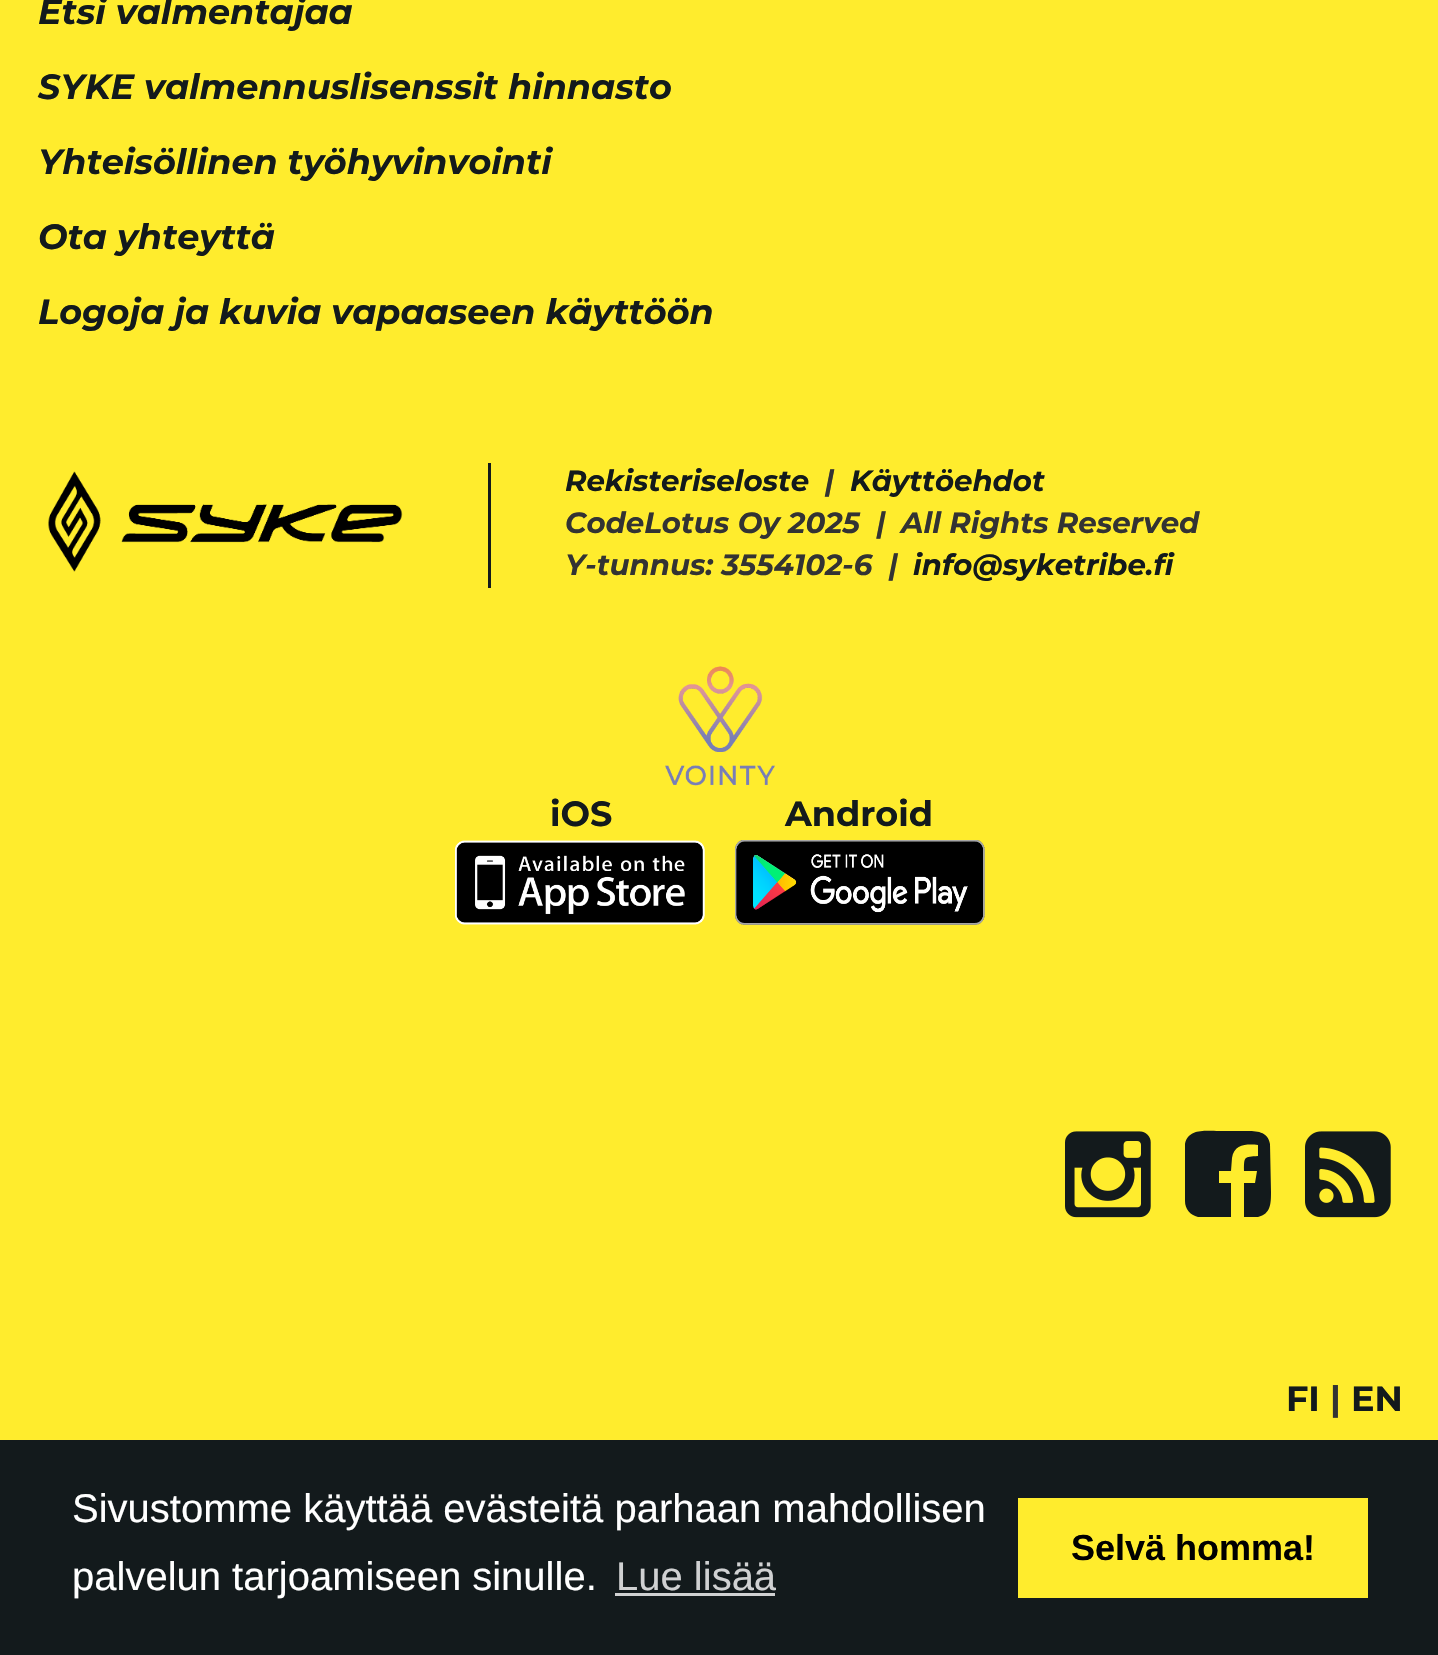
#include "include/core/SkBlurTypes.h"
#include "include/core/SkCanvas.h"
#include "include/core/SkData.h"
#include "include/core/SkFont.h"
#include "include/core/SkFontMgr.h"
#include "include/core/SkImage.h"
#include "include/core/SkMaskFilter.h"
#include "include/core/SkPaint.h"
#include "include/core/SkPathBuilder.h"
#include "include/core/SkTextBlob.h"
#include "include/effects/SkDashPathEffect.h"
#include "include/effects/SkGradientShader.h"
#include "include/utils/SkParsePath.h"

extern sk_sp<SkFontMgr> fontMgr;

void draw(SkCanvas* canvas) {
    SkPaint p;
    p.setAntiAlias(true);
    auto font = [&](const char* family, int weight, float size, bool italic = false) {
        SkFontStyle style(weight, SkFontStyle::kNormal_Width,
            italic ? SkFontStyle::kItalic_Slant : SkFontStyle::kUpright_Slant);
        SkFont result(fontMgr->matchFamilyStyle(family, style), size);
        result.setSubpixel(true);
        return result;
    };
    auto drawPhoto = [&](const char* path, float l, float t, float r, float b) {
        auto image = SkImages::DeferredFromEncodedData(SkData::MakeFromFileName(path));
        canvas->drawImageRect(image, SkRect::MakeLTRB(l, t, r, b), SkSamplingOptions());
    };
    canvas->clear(0xFFFFEC2D);
    auto font1 = font("Montserrat", 700, 35, true);
    p.setColor(0xFF131A1C);
    {
        const struct { const char* s; float x, y; } items[] = {
            {"Etsi valmentajaa", 38, 24},
            {"SYKE valmennuslisenssit hinnasto", 38, 99},
            {"Yhteisöllinen työhyvinvointi", 38, 174},
            {"Ota yhteyttä", 38, 249},
            {"Logoja ja kuvia vapaaseen käyttöön", 38, 324},
        };
        for (auto [s, x, y] : items) {
            canvas->drawString(s, x, y, font1, p);
        }
    }
    drawPhoto("media/1.png", 48, 471, 403, 572);
    canvas->drawRect(SkRect::MakeLTRB(488, 463, 491, 588), p);
    auto font2 = font("Montserrat", 700, 29.25f, true);
    canvas->drawString("Rekisteriseloste", 565, 491, font2, p);
    p.setColor(0xFF333333);
    canvas->drawString("|", 825, 491, font2, p);
    p.setColor(0xFF131A1C);
    canvas->drawString("Käyttöehdot", 850, 491, font2, p);
    p.setColor(0xFF333333);
    {
        const struct { const char* s; float x, y; } items[] = {
            {"CodeLotus Oy 2025  |", 565, 533},
            {"All Rights Reserved", 901, 533},
            {"Y-tunnus: 3554102-6  |", 565, 575},
        };
        for (auto [s, x, y] : items) {
            canvas->drawString(s, x, y, font2, p);
        }
    }
    p.setColor(0xFF131A1C);
    canvas->drawString("info@syketribe.fi", 913, 575, font2, p);
    drawPhoto("media/2.png", 665, 666, 775, 786);
    auto font3 = font("Montserrat", 700, 35);
    canvas->drawString("iOS", 550, 826, font3, p);
    drawPhoto("media/3.png", 455, 840, 705, 925);
    canvas->drawString("Android", 785, 826, font3, p);
    drawPhoto("media/4.png", 735, 840, 985, 925);
    drawPhoto("media/5.png", 1065, 1131, 1151, 1218);
    canvas->drawPath(SkPathBuilder().moveTo(1185, 1201).lineTo(1185, 1144).cubicTo(1188, 1128, 1207, 1131, 1219, 1131).lineTo(1246, 1131).cubicTo(1256, 1131, 1268, 1131, 1270, 1144).lineTo(1271, 1192).cubicTo(1271, 1203, 1271, 1214, 1258, 1217).lineTo(1244, 1217).lineTo(1244, 1183).lineTo(1255, 1183).lineTo(1257, 1171).lineTo(1244, 1171).cubicTo(1244, 1156, 1244, 1157, 1258, 1156).lineTo(1258, 1145).cubicTo(1247, 1144, 1234, 1144, 1232, 1158).lineTo(1231, 1171).lineTo(1219, 1171).lineTo(1219, 1183).lineTo(1231, 1183).lineTo(1231, 1217).lineTo(1198, 1217).cubicTo(1190, 1215, 1185, 1209, 1185, 1201).close().detach(), p);
    drawPhoto("media/6.png", 1305, 1131, 1391, 1218);
    canvas->drawString("FI", 1286, 1411, font3, p);
    p.setColor(0xFF333333);
    canvas->drawString("|", 1330, 1411, font3, p);
    p.setColor(0xFF131A1C);
    canvas->drawString("EN", 1351, 1411, font3, p);
    canvas->drawRect(SkRect::MakeLTRB(0, 1440, 1438, 1655), p);
    auto font4 = font("Liberation Sans", 400, 40);
    p.setColor(0xFFFFFFFF);
    canvas->drawString("Sivustomme käyttää evästeitä parhaan mahdollisen", 72, 1522, font4, p);
    canvas->drawString("palvelun tarjoamiseen sinulle.", 72, 1590, font4, p);
    p.setColor(0xFFD0D1D2);
    canvas->drawString("Lue lisää", 616, 1590, font4, p);
    canvas->drawRect(SkRect::MakeLTRB(615, 1593, 775, 1596), p);
    p.setColor(0xFFFFEC2D);
    canvas->drawRect(SkRect::MakeLTRB(1018, 1498, 1368, 1598), p);
    auto font5 = font("Liberation Sans", 700, 36);
    p.setColor(0xFF000000);
    canvas->drawString("Selvä homma!", 1071, 1560, font5, p);
}
